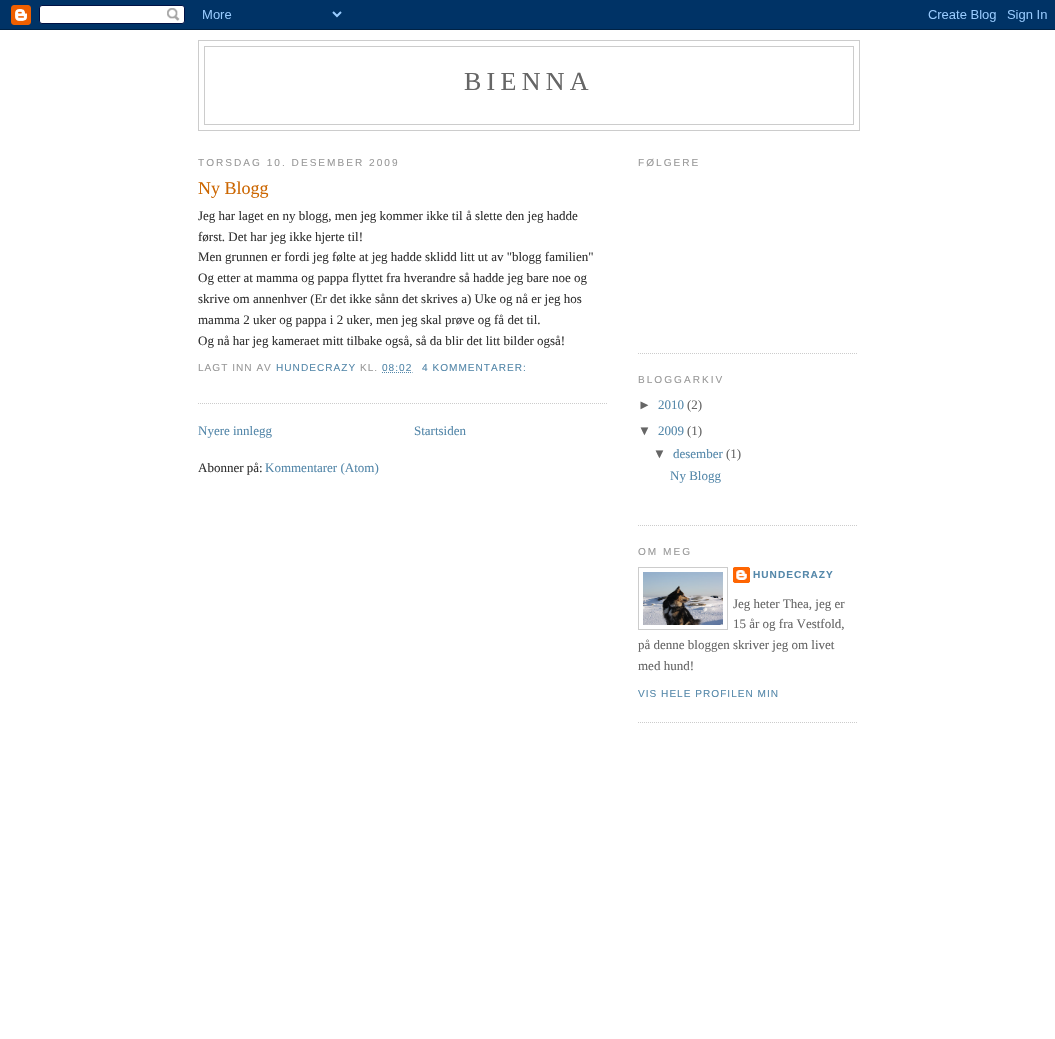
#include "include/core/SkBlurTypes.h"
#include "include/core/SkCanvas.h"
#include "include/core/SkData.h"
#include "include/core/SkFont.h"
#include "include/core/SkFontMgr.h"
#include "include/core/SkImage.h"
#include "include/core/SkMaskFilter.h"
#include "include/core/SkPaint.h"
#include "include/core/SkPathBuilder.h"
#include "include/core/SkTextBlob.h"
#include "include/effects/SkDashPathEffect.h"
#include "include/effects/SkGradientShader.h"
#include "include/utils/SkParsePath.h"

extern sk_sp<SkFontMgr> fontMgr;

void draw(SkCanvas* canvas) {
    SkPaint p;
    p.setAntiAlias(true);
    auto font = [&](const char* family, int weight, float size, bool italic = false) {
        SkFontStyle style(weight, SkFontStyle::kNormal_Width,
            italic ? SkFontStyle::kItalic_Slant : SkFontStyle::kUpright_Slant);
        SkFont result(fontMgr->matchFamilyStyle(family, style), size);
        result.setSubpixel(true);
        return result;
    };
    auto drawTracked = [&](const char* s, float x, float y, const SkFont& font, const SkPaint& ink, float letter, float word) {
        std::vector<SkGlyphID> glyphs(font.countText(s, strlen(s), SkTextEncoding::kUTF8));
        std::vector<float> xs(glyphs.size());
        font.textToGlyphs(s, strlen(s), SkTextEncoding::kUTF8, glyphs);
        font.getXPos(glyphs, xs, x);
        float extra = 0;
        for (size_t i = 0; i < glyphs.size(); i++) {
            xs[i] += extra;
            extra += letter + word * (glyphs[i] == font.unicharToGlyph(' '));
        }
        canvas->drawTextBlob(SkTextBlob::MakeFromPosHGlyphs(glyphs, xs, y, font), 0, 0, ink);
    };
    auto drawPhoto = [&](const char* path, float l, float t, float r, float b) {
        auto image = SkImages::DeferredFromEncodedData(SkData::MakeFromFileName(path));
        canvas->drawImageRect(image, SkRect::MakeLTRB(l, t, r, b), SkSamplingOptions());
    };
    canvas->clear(0xFFFFFFFF);
    drawPhoto("media/1.png", 0, 0, 1055, 30);
    p.setStyle(SkPaint::kStroke_Style);
    p.setStrokeWidth(1);
    p.setColor(0xFFCCCCCC);
    canvas->drawRect(SkRect::MakeLTRB(198.5f, 40.5f, 859.5f, 130.5f), p);
    canvas->drawRect(SkRect::MakeLTRB(204.5f, 46.5f, 853.5f, 124.5f), p);
    auto font1 = font("Liberation Serif", 400, 26);
    p.setStyle(SkPaint::kFill_Style);
    p.setColor(0xFF666666);
    drawTracked("BIENNA", 464, 90, font1, p, 5.25f, 0);
    auto font2 = font("Liberation Sans", 400, 10.1f);
    p.setColor(0xFF999999);
    drawTracked("TORSDAG 10. DESEMBER 2009", 198, 166, font2, p, 2, 0);
    p.setStyle(SkPaint::kStroke_Style);
    p.setColor(0xFFCCCCCC);
    p.setPathEffect(SkDashPathEffect::Make({{1, 1}}, 0));
    canvas->drawPath(SkPathBuilder().moveTo(198, 403.5f).lineTo(608, 403.5f).detach(), p);
    p.setPathEffect(nullptr);
    auto font3 = font("Liberation Serif", 400, 18);
    p.setStyle(SkPaint::kFill_Style);
    p.setColor(0xFFCC6600);
    canvas->drawString("Ny Blogg", 198, 194, font3, p);
    auto font4 = font("Liberation Serif", 400, 13);
    p.setColor(0xFF333333);
    {
        const struct { const char* s; float x, y; } items[] = {
            {"Jeg har laget en ny blogg, men jeg kommer ikke til å slette den jeg hadde", 198, 220},
            {"først. Det har jeg ikke hjerte til!", 198, 241},
            {"Men grunnen er fordi jeg følte at jeg hadde sklidd litt ut av \"blogg familien\"", 198, 261},
            {"Og etter at mamma og pappa flyttet fra hverandre så hadde jeg bare noe og", 198, 282},
            {"skrive om annenhver (Er det ikke sånn det skrives a) Uke og nå er jeg hos", 198, 303},
            {"mamma 2 uker og pappa i 2 uker, men jeg skal prøve og få det til.", 198, 324},
            {"Og nå har jeg kameraet mitt tilbake også, så da blir det litt bilder også!", 198, 345},
        };
        for (auto [s, x, y] : items) {
            canvas->drawString(s, x, y, font4, p);
        }
    }
    p.setColor(0xFF999999);
    drawTracked("LAGT INN AV", 198, 371, font2, p, 1, 0);
    p.setColor(0xFF5588AA);
    drawTracked("HUNDECRAZY", 276, 371, font2, p, 1, 0);
    p.setColor(0xFF999999);
    drawTracked("KL.", 360, 371, font2, p, 1, 0);
    p.setColor(0xFF5588AA);
    drawTracked("08:02", 382, 371, font2, p, 1, 0);
    p.setStyle(SkPaint::kStroke_Style);
    p.setPathEffect(SkDashPathEffect::Make({{1, 1}}, 0));
    canvas->drawPath(SkPathBuilder().moveTo(382, 372.5f).lineTo(412.5f, 372.5f).detach(), p);
    p.setPathEffect(nullptr);
    p.setStyle(SkPaint::kFill_Style);
    drawTracked("4 KOMMENTARER:", 422, 371, font2, p, 1, 0);
    canvas->drawString("Nyere innlegg", 198, 435, font4, p);
    canvas->drawString("Startsiden", 414, 435, font4, p);
    p.setColor(0xFF333333);
    canvas->drawString("Abonner på:", 198, 472, font4, p);
    p.setColor(0xFF5588AA);
    canvas->drawString("Kommentarer (Atom)", 265, 472, font4, p);
    p.setStyle(SkPaint::kStroke_Style);
    p.setColor(0xFFCCCCCC);
    p.setPathEffect(SkDashPathEffect::Make({{1, 1}}, 0));
    canvas->drawPath(SkPathBuilder().moveTo(638, 353.5f).lineTo(858, 353.5f).detach(), p);
    p.setPathEffect(nullptr);
    p.setStyle(SkPaint::kFill_Style);
    p.setColor(0xFF999999);
    drawTracked("FØLGERE", 638, 166, font2, p, 2, 0);
    p.setStyle(SkPaint::kStroke_Style);
    p.setColor(0xFFCCCCCC);
    p.setPathEffect(SkDashPathEffect::Make({{1, 1}}, 0));
    canvas->drawPath(SkPathBuilder().moveTo(638, 525.5f).lineTo(858, 525.5f).detach(), p);
    p.setPathEffect(nullptr);
    p.setStyle(SkPaint::kFill_Style);
    p.setColor(0xFF999999);
    drawTracked("BLOGGARKIV", 638, 383, font2, p, 2, 0);
    auto font5 = font("Liberation Sans", 400, 13);
    p.setColor(0xFF666666);
    canvas->drawString("►", 638, 409, font5, p);
    p.setColor(0xFF5588AA);
    canvas->drawString("2010", 658, 409, font4, p);
    p.setColor(0xFF666666);
    canvas->drawString("(2)", 687, 409, font4, p);
    canvas->drawString("▼", 638, 435, font5, p);
    p.setColor(0xFF5588AA);
    canvas->drawString("2009", 658, 435, font4, p);
    p.setColor(0xFF666666);
    canvas->drawString("(1)", 687, 435, font4, p);
    canvas->drawString("▼", 653, 458, font5, p);
    p.setColor(0xFF5588AA);
    canvas->drawString("desember", 673, 458, font4, p);
    p.setColor(0xFF666666);
    canvas->drawString("(1)", 726, 458, font4, p);
    p.setColor(0xFF5588AA);
    canvas->drawString("Ny Blogg", 670, 480, font4, p);
    p.setStyle(SkPaint::kStroke_Style);
    p.setColor(0xFFCCCCCC);
    p.setPathEffect(SkDashPathEffect::Make({{1, 1}}, 0));
    canvas->drawPath(SkPathBuilder().moveTo(638, 722.5f).lineTo(858, 722.5f).detach(), p);
    p.setPathEffect(nullptr);
    p.setStyle(SkPaint::kFill_Style);
    p.setColor(0xFF999999);
    drawTracked("OM MEG", 638, 555, font2, p, 2, 0);
    p.setStyle(SkPaint::kStroke_Style);
    p.setColor(0xFFCCCCCC);
    canvas->drawRect(SkRect::MakeLTRB(638.5f, 567.5f, 727.5f, 629.5f), p);
    drawPhoto("media/2.png", 643, 572, 723, 625);
    drawPhoto("media/3.png", 733, 567, 750, 583);
    auto font6 = font("Liberation Sans", 700, 10.1f);
    p.setStyle(SkPaint::kFill_Style);
    p.setColor(0xFF5588AA);
    drawTracked("HUNDECRAZY", 753, 578, font6, p, 1, 0);
    p.setColor(0xFF666666);
    {
        const struct { const char* s; float x, y; } items[] = {
            {"Jeg heter Thea, jeg er", 733, 608},
            {"15 år og fra Vestfold,", 733, 628},
            {"på denne bloggen skriver jeg om livet", 638, 649},
            {"med hund!", 638, 670},
        };
        for (auto [s, x, y] : items) {
            canvas->drawString(s, x, y, font4, p);
        }
    }
    p.setColor(0xFF5588AA);
    drawTracked("VIS HELE PROFILEN MIN", 638, 697, font2, p, 1, 0);
}
